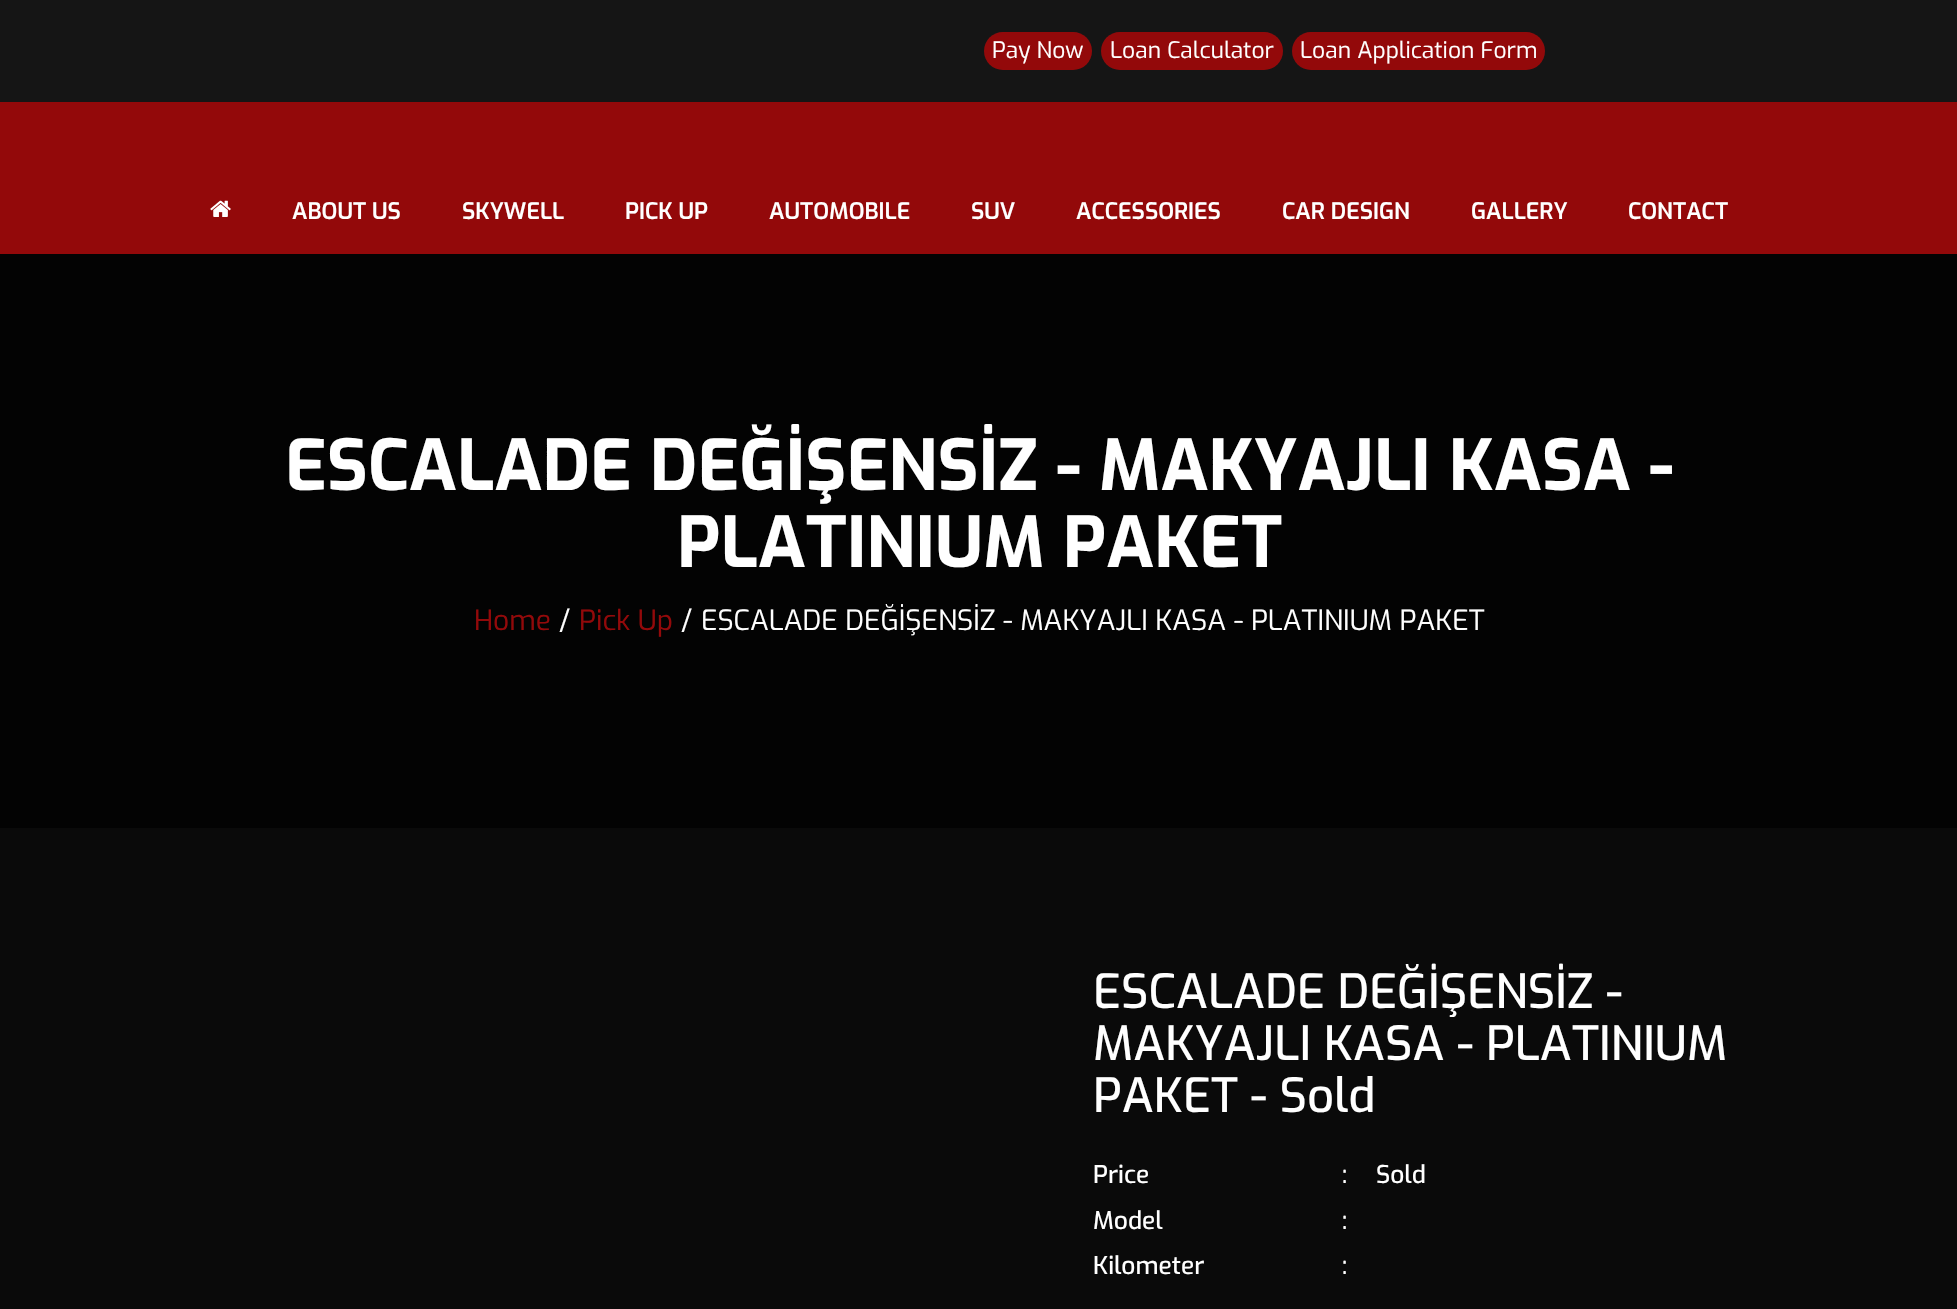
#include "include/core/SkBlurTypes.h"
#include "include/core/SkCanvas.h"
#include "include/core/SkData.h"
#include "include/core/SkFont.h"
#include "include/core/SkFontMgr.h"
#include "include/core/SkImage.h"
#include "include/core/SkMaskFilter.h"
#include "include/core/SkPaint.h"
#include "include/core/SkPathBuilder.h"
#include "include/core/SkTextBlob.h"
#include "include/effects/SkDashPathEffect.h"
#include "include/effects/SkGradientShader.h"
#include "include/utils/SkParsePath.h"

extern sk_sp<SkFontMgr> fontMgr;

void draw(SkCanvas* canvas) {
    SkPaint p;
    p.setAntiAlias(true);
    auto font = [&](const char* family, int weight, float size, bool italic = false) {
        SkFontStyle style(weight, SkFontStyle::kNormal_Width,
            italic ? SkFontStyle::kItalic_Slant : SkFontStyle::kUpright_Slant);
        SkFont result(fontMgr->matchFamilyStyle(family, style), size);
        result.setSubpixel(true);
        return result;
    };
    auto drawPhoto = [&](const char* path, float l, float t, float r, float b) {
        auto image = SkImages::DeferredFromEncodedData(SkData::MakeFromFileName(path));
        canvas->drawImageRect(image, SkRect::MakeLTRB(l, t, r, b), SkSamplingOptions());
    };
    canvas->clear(0xFF0A0A0A);
    p.setColor(0xFF151515);
    canvas->drawRect(SkRect::MakeLTRB(0, 0, 1957, 102), p);
    p.setColor(0xFF93090A);
    canvas->drawRoundRect(SkRect::MakeLTRB(984, 32, 1092, 70), 19, 19, p);
    auto font1 = font("Exo", 400, 22.75f);
    p.setColor(0xFFFFFFFF);
    canvas->drawString("Pay Now", 992, 58, font1, p);
    p.setColor(0xFF93090A);
    canvas->drawRoundRect(SkRect::MakeLTRB(1101, 32, 1283, 70), 19, 19, p);
    p.setColor(0xFFFFFFFF);
    canvas->drawString("Loan Calculator", 1110, 58, font1, p);
    p.setColor(0xFF93090A);
    canvas->drawRoundRect(SkRect::MakeLTRB(1292, 32, 1545, 70), 19, 19, p);
    p.setColor(0xFFFFFFFF);
    canvas->drawString("Loan Application Form", 1300, 58, font1, p);
    p.setColor(0xFF93090A);
    canvas->drawRect(SkRect::MakeLTRB(0, 102, 1957, 254), p);
    drawPhoto("media/1.png", 210, 200, 231, 217);
    auto font2 = font("Exo", 600, 22.75f);
    p.setColor(0xFFFFFFFF);
    {
        const struct { const char* s; float x, y; } items[] = {
            {"ABOUT US", 292, 219},
            {"SKYWELL", 462, 219},
            {"PICK UP", 625, 219},
            {"AUTOMOBILE", 769, 219},
            {"SUV", 971, 219},
            {"ACCESSORIES", 1076, 219},
            {"CAR DESIGN", 1282, 219},
            {"GALLERY", 1471, 219},
            {"CONTACT", 1628, 219},
        };
        for (auto [s, x, y] : items) {
            canvas->drawString(s, x, y, font2, p);
        }
    }
    p.setColor(0xFF030303);
    canvas->drawRect(SkRect::MakeLTRB(0, 254, 1957, 828), p);
    auto font3 = font("Exo", 700, 70);
    p.setColor(0xFFFFFFFF);
    canvas->drawString("ESCALADE DEĞİŞENSİZ - MAKYAJLI KASA -", 285, 490, font3, p);
    canvas->drawString("PLATINIUM PAKET", 677, 567, font3, p);
    auto font4 = font("Exo", 400, 28);
    p.setColor(0xFF93090A);
    canvas->drawString("Home", 474, 630, font4, p);
    p.setColor(0xFFFFFFFF);
    canvas->drawString("/", 559, 630, font4, p);
    p.setColor(0xFF93090A);
    canvas->drawString("Pick Up", 579, 630, font4, p);
    p.setColor(0xFFFFFFFF);
    canvas->drawString("/", 681, 630, font4, p);
    canvas->drawString("ESCALADE DEĞİŞENSİZ - MAKYAJLI KASA - PLATINIUM PAKET", 701, 630, font4, p);
    auto font5 = font("Exo", 500, 47.25f);
    {
        const struct { const char* s; float x, y; } items[] = {
            {"ESCALADE DEĞİŞENSİZ -", 1093, 1008},
            {"MAKYAJLI KASA - PLATINIUM", 1093, 1060},
            {"PAKET - Sold", 1093, 1112},
        };
        for (auto [s, x, y] : items) {
            canvas->drawString(s, x, y, font5, p);
        }
    }
    auto font6 = font("Exo", 500, 24.5f);
    {
        const struct { const char* s; float x, y; } items[] = {
            {"Price", 1093, 1183},
            {":", 1342, 1183},
            {"Sold", 1376, 1183},
            {"Model", 1093, 1229},
            {":", 1342, 1229},
            {"Kilometer", 1093, 1274},
            {":", 1342, 1274},
        };
        for (auto [s, x, y] : items) {
            canvas->drawString(s, x, y, font6, p);
        }
    }
}
